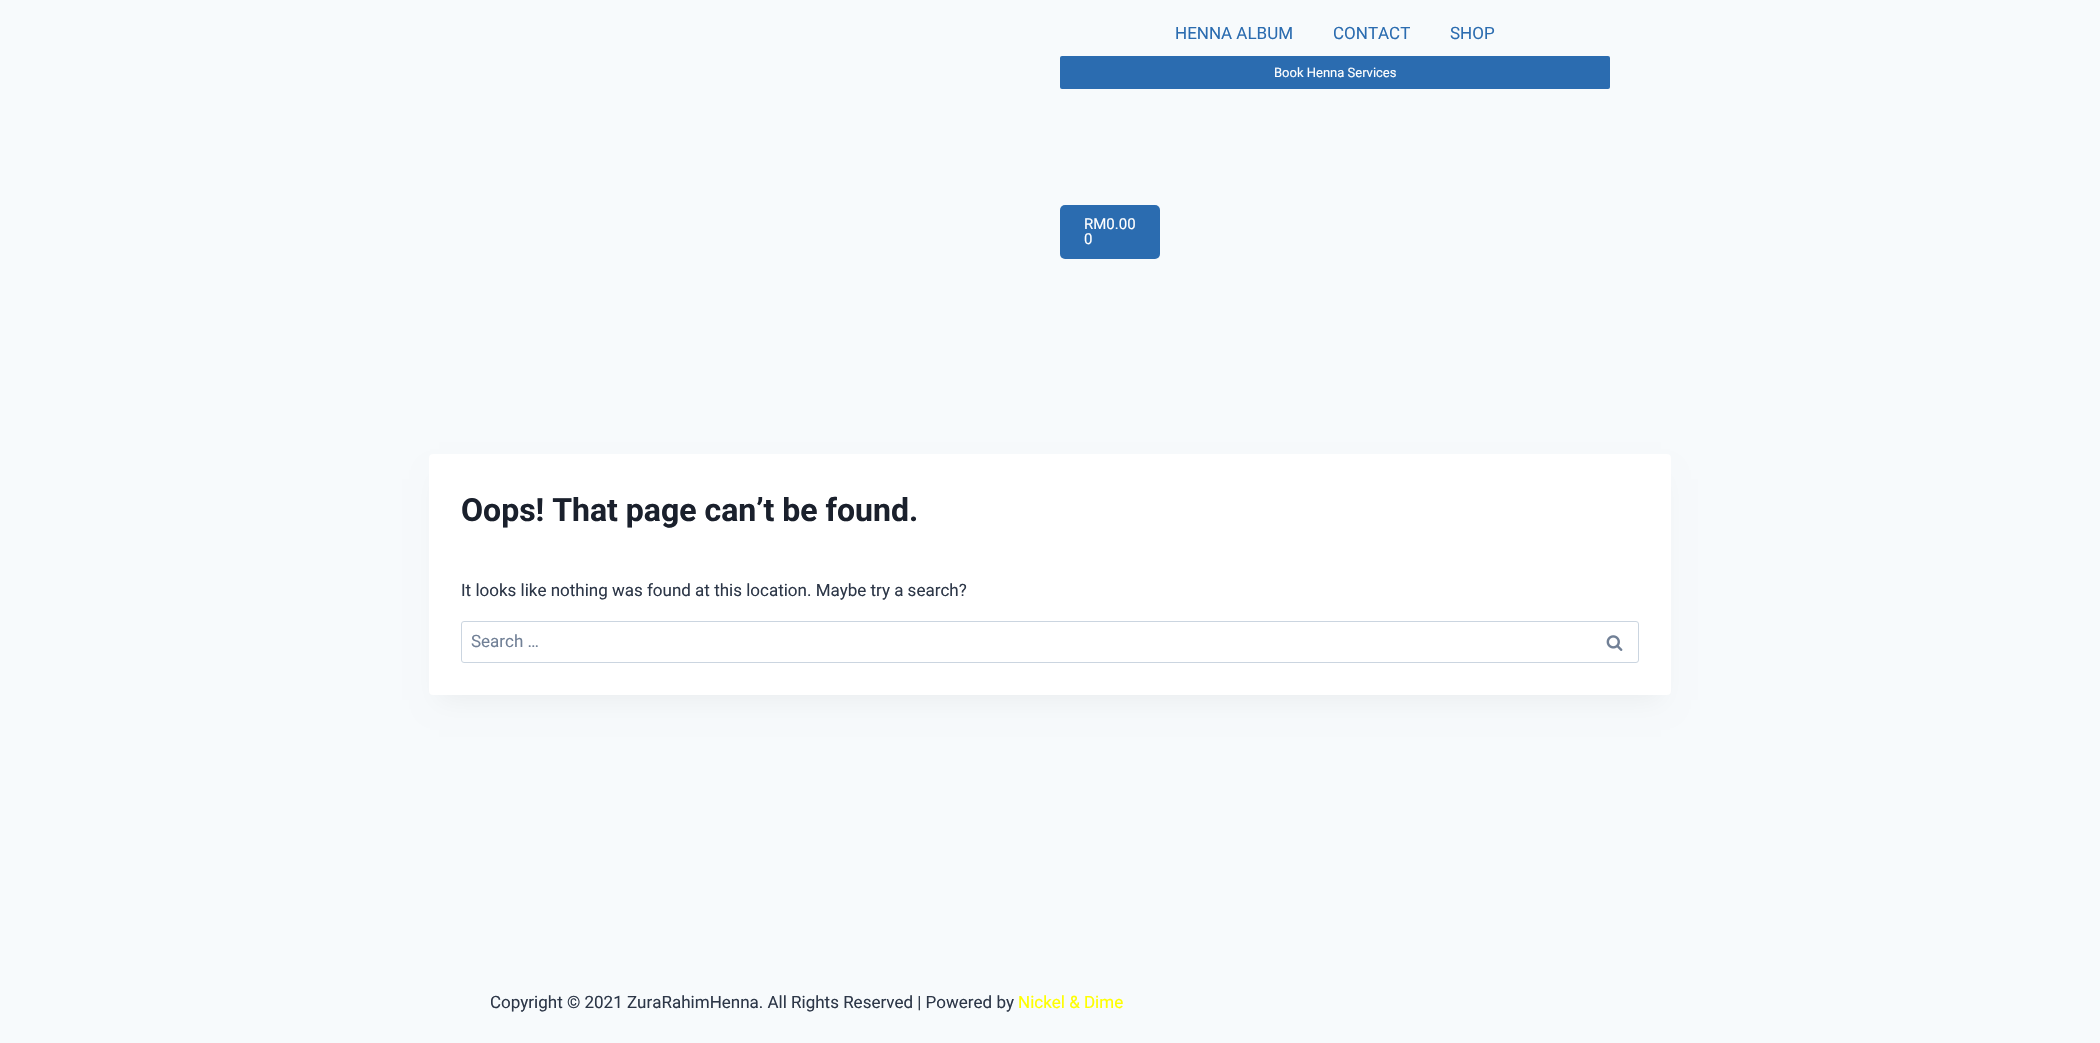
#include "include/core/SkBlurTypes.h"
#include "include/core/SkCanvas.h"
#include "include/core/SkData.h"
#include "include/core/SkFont.h"
#include "include/core/SkFontMgr.h"
#include "include/core/SkImage.h"
#include "include/core/SkMaskFilter.h"
#include "include/core/SkPaint.h"
#include "include/core/SkPathBuilder.h"
#include "include/core/SkTextBlob.h"
#include "include/effects/SkDashPathEffect.h"
#include "include/effects/SkGradientShader.h"
#include "include/utils/SkParsePath.h"

extern sk_sp<SkFontMgr> fontMgr;

void draw(SkCanvas* canvas) {
    SkPaint p;
    p.setAntiAlias(true);
    auto font = [&](const char* family, int weight, float size, bool italic = false) {
        SkFontStyle style(weight, SkFontStyle::kNormal_Width,
            italic ? SkFontStyle::kItalic_Slant : SkFontStyle::kUpright_Slant);
        SkFont result(fontMgr->matchFamilyStyle(family, style), size);
        result.setSubpixel(true);
        return result;
    };
    auto drawPhoto = [&](const char* path, float l, float t, float r, float b) {
        auto image = SkImages::DeferredFromEncodedData(SkData::MakeFromFileName(path));
        canvas->drawImageRect(image, SkRect::MakeLTRB(l, t, r, b), SkSamplingOptions());
    };
    canvas->clear(0xFFF7FAFC);
    auto font1 = font("Roboto", 400, 17);
    p.setColor(0xFF2B6CB0);
    {
        const struct { const char* s; float x, y; } items[] = {
            {"HENNA ALBUM", 1175, 39},
            {"CONTACT", 1333, 39},
            {"SHOP", 1450, 39},
        };
        for (auto [s, x, y] : items) {
            canvas->drawString(s, x, y, font1, p);
        }
    }
    canvas->drawRoundRect(SkRect::MakeLTRB(1060, 56, 1610, 89), 2, 2, p);
    auto font2 = font("Roboto", 400, 13);
    p.setColor(0xFFFFFFFF);
    canvas->drawString("Book Henna Services", 1274, 77, font2, p);
    p.setColor(0xFF2B6CB0);
    canvas->drawRoundRect(SkRect::MakeLTRB(1060, 205, 1160, 259), 5, 5, p);
    auto font3 = font("Roboto", 400, 15);
    p.setColor(0xFFFFFFFF);
    canvas->drawString("RM0.00", 1084, 229, font3, p);
    canvas->drawString("0", 1084, 244, font3, p);
    p.setColor(0x0D000000);
    p.setMaskFilter(SkMaskFilter::MakeBlur(kNormal_SkBlurStyle, 12.5f));
    canvas->drawRect(SkRect::MakeLTRB(439, 479, 1661, 700), p);
    p.setMaskFilter(nullptr);
    p.setColor(0xFFFFFFFF);
    canvas->drawRoundRect(SkRect::MakeLTRB(429, 454, 1671, 695), 4, 4, p);
    auto font4 = font("Roboto", 700, 32);
    p.setColor(0xFF1A202C);
    canvas->drawString("Oops! That page can’t be found.", 461, 521, font4, p);
    p.setColor(0xFF2D3748);
    canvas->drawString("It looks like nothing was found at this location. Maybe try a search?", 461, 596, font1, p);
    p.setStyle(SkPaint::kStroke_Style);
    p.setStrokeWidth(1);
    p.setColor(0xFFCBD5E0);
    canvas->drawRoundRect(SkRect::MakeLTRB(461.5f, 621.5f, 1638.5f, 662.5f), 2.5f, 2.5f, p);
    p.setStyle(SkPaint::kFill_Style);
    p.setColor(0xFF718096);
    canvas->drawString("Search …", 471, 647, font1, p);
    drawPhoto("media/1.png", 1606, 635, 1623, 651);
    p.setColor(0xFF2D3748);
    canvas->drawString("Copyright © 2021 ZuraRahimHenna. All Rights Reserved | Powered by", 490, 1008, font1, p);
    p.setColor(0xFFFFFF00);
    canvas->drawString("Nickel & Dime", 1018, 1008, font1, p);
}
